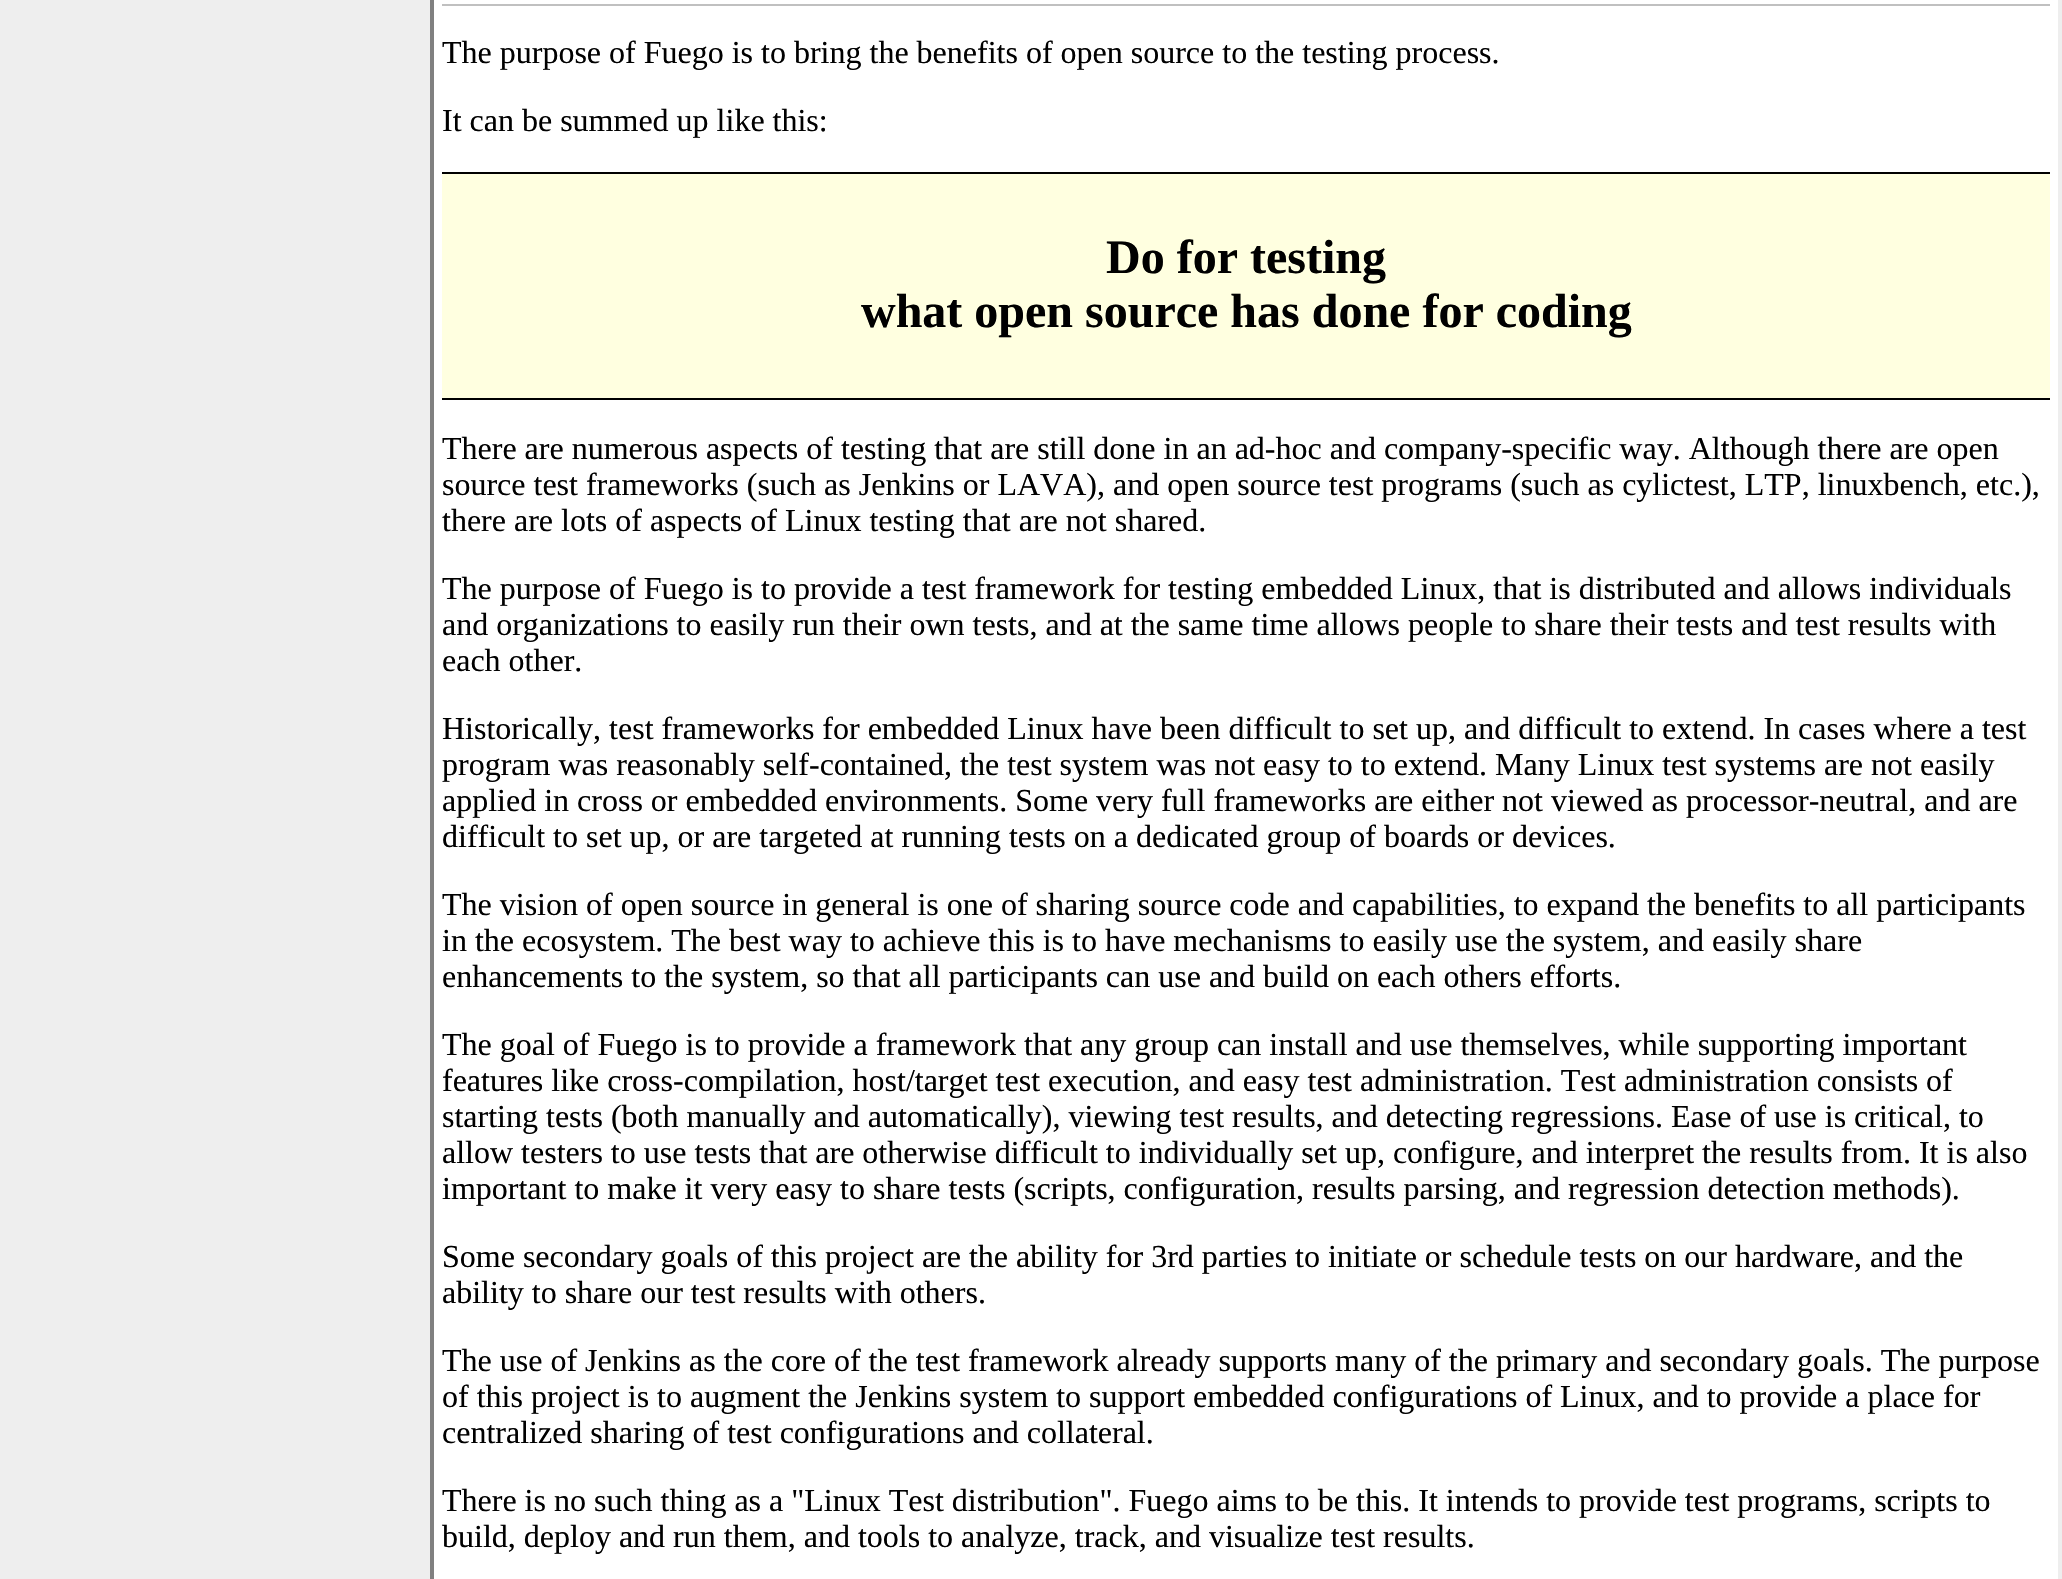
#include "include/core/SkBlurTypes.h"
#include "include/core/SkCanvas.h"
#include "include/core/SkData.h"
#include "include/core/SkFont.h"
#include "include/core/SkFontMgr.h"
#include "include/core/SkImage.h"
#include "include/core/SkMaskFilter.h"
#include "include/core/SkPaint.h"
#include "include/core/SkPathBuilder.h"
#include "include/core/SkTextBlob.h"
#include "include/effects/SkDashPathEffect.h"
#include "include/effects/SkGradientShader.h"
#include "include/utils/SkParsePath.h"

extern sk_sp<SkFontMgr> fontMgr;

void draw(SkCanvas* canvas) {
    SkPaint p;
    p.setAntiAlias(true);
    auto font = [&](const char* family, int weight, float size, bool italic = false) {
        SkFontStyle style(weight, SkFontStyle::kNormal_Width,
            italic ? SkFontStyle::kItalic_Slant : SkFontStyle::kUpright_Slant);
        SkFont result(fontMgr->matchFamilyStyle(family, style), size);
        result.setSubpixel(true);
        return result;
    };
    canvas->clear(0xFFEEEEEE);
    {
        const struct { float l, t, r, b; SkColor color; } items[] = {
            {434, 0, 2058, 1579, 0xFFFFFFFF},
            {430, 0, 434, 1579, 0xFF808080},
            {442, 4, 2050, 6, 0xFFC0C0C0},
        };
        for (auto [l, t, r, b, color] : items) {
            p.setColor(color);
            canvas->drawRect(SkRect::MakeLTRB(l, t, r, b), p);
        }
    }
    auto font1 = font("Liberation Serif", 400, 32);
    p.setColor(0xFF000000);
    canvas->drawString("The purpose of Fuego is to bring the benefits of open source to the testing process.", 442, 63, font1, p);
    canvas->drawString("It can be summed up like this:", 442, 131, font1, p);
    {
        const struct { float l, t, r, b; SkColor color; } items[] = {
            {442, 174, 2050, 398, 0xFFFFFFE0},
            {442, 172, 2050, 174, 0xFF000000},
            {442, 398, 2050, 400, 0xFF000000},
        };
        for (auto [l, t, r, b, color] : items) {
            p.setColor(color);
            canvas->drawRect(SkRect::MakeLTRB(l, t, r, b), p);
        }
    }
    auto font2 = font("Liberation Serif", 700, 48);
    canvas->drawString("Do for testing", 1106, 273, font2, p);
    canvas->drawString("what open source has done for coding", 861, 327, font2, p);
    {
        const struct { const char* s; float x, y; } items[] = {
            {"There are numerous aspects of testing that are still done in an ad-hoc and company-specific way. Although there are open", 442, 459},
            {"source test frameworks (such as Jenkins or LAVA), and open source test programs (such as cylictest, LTP, linuxbench, etc.),", 442, 495},
            {"there are lots of aspects of Linux testing that are not shared.", 442, 531},
            {"The purpose of Fuego is to provide a test framework for testing embedded Linux, that is distributed and allows individuals", 442, 599},
            {"and organizations to easily run their own tests, and at the same time allows people to share their tests and test results with", 442, 635},
            {"each other.", 442, 671},
            {"Historically, test frameworks for embedded Linux have been difficult to set up, and difficult to extend. In cases where a test", 442, 739},
            {"program was reasonably self-contained, the test system was not easy to to extend. Many Linux test systems are not easily", 442, 775},
            {"applied in cross or embedded environments. Some very full frameworks are either not viewed as processor-neutral, and are", 442, 811},
            {"difficult to set up, or are targeted at running tests on a dedicated group of boards or devices.", 442, 847},
            {"The vision of open source in general is one of sharing source code and capabilities, to expand the benefits to all participants", 442, 915},
            {"in the ecosystem. The best way to achieve this is to have mechanisms to easily use the system, and easily share", 442, 951},
            {"enhancements to the system, so that all participants can use and build on each others efforts.", 442, 987},
            {"The goal of Fuego is to provide a framework that any group can install and use themselves, while supporting important", 442, 1055},
            {"features like cross-compilation, host/target test execution, and easy test administration. Test administration consists of", 442, 1091},
            {"starting tests (both manually and automatically), viewing test results, and detecting regressions. Ease of use is critical, to", 442, 1127},
            {"allow testers to use tests that are otherwise difficult to individually set up, configure, and interpret the results from. It is also", 442, 1163},
            {"important to make it very easy to share tests (scripts, configuration, results parsing, and regression detection methods).", 442, 1199},
            {"Some secondary goals of this project are the ability for 3rd parties to initiate or schedule tests on our hardware, and the", 442, 1267},
            {"ability to share our test results with others.", 442, 1303},
            {"The use of Jenkins as the core of the test framework already supports many of the primary and secondary goals. The purpose", 442, 1371},
            {"of this project is to augment the Jenkins system to support embedded configurations of Linux, and to provide a place for", 442, 1407},
            {"centralized sharing of test configurations and collateral.", 442, 1443},
            {"There is no such thing as a \"Linux Test distribution\". Fuego aims to be this. It intends to provide test programs, scripts to", 442, 1511},
            {"build, deploy and run them, and tools to analyze, track, and visualize test results.", 442, 1547},
        };
        for (auto [s, x, y] : items) {
            canvas->drawString(s, x, y, font1, p);
        }
    }
}
